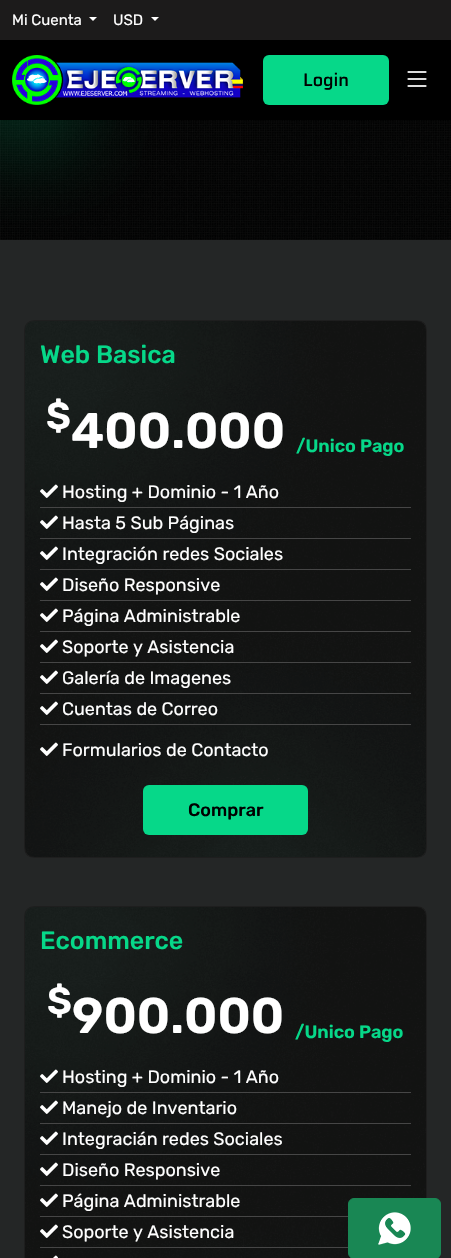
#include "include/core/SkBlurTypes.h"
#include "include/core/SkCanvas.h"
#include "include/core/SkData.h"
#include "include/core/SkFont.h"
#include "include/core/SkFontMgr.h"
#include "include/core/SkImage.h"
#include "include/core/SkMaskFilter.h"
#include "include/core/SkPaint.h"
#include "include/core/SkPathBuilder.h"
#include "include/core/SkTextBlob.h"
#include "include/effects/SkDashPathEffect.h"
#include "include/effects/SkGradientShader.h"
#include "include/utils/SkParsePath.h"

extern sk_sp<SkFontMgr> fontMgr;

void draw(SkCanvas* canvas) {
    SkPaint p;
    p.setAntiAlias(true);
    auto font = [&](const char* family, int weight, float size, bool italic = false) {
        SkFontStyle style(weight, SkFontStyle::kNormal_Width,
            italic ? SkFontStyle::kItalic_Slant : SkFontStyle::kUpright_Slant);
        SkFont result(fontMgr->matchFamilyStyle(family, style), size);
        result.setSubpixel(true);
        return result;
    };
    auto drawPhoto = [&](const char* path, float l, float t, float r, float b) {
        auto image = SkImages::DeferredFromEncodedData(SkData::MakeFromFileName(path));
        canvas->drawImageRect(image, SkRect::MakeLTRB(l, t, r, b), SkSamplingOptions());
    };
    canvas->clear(0xFF000000);
    p.setColor(0xFF1C1B1B);
    canvas->drawRect(SkRect::MakeLTRB(0, 0, 451, 40), p);
    auto font1 = font("Rubik", 400, 15);
    p.setColor(0xFFFFFFFF);
    canvas->drawString("Mi Cuenta", 12, 25, font1, p);
    canvas->drawPath(SkPathBuilder().moveTo(89, 17).lineTo(97, 17).lineTo(93, 21).close().detach(), p);
    canvas->drawString("USD", 113, 25, font1, p);
    canvas->drawPath(SkPathBuilder().moveTo(151, 17).lineTo(159, 17).lineTo(155, 21).close().detach(), p);
    drawPhoto("media/1.png", 12, 55, 243, 105);
    p.setColor(0xFF06D889);
    canvas->drawRoundRect(SkRect::MakeLTRB(263, 55, 389, 105), 6, 6, p);
    auto font2 = font("Saira", 500, 18);
    p.setColor(0xFF000000);
    canvas->drawString("Login", 303, 86, font2, p);
    drawPhoto("media/2.png", 407, 71, 427, 87);
    drawPhoto("media/3.png", 0, 120, 451, 240);
    p.setColor(0xFF242626);
    canvas->drawRect(SkRect::MakeLTRB(0, 240, 451, 1258), p);
    drawPhoto("media/4.png", 25, 321, 426, 858);
    p.setStyle(SkPaint::kStroke_Style);
    p.setStrokeWidth(1);
    p.setColor(0xFF1E1E1E);
    canvas->drawRoundRect(SkRect::MakeLTRB(24.5f, 320.5f, 426.5f, 857.5f), 9.5f, 9.5f, p);
    auto font3 = font("Rubik", 500, 25);
    p.setStyle(SkPaint::kFill_Style);
    p.setColor(0xFF06D889);
    canvas->drawString("Web Basica", 40, 363, font3, p);
    auto font4 = font("Rubik", 600, 38);
    p.setColor(0xFFFFFFFF);
    canvas->drawString("$", 46, 429, font4, p);
    auto font5 = font("Rubik", 600, 50);
    canvas->drawString("400.000", 71, 448, font5, p);
    auto font6 = font("Rubik", 600, 18);
    p.setColor(0xFF06D889);
    canvas->drawString("/Unico Pago", 296, 452, font6, p);
    p.setColor(0xFF464646);
    canvas->drawRect(SkRect::MakeLTRB(40, 507, 411, 508), p);
    drawPhoto("media/5.png", 40, 484, 58, 498);
    auto font7 = font("Rubik", 400, 18);
    p.setColor(0xFFFFFFFF);
    canvas->drawString("Hosting + Dominio - 1 Año", 62, 498, font7, p);
    p.setColor(0xFF464646);
    canvas->drawRect(SkRect::MakeLTRB(40, 538, 411, 539), p);
    drawPhoto("media/6.png", 40, 515, 58, 529);
    p.setColor(0xFFFFFFFF);
    canvas->drawString("Hasta 5 Sub Páginas", 62, 529, font7, p);
    p.setColor(0xFF464646);
    canvas->drawRect(SkRect::MakeLTRB(40, 569, 411, 570), p);
    drawPhoto("media/7.png", 40, 546, 58, 560);
    p.setColor(0xFFFFFFFF);
    canvas->drawString("Integración redes Sociales", 62, 560, font7, p);
    p.setColor(0xFF464646);
    canvas->drawRect(SkRect::MakeLTRB(40, 600, 411, 601), p);
    drawPhoto("media/8.png", 40, 577, 58, 591);
    p.setColor(0xFFFFFFFF);
    canvas->drawString("Diseño Responsive", 62, 591, font7, p);
    p.setColor(0xFF464646);
    canvas->drawRect(SkRect::MakeLTRB(40, 631, 411, 632), p);
    drawPhoto("media/9.png", 40, 608, 58, 622);
    p.setColor(0xFFFFFFFF);
    canvas->drawString("Página Administrable", 62, 622, font7, p);
    p.setColor(0xFF464646);
    canvas->drawRect(SkRect::MakeLTRB(40, 662, 411, 663), p);
    drawPhoto("media/10.png", 40, 639, 58, 653);
    p.setColor(0xFFFFFFFF);
    canvas->drawString("Soporte y Asistencia", 62, 653, font7, p);
    p.setColor(0xFF464646);
    canvas->drawRect(SkRect::MakeLTRB(40, 693, 411, 694), p);
    drawPhoto("media/11.png", 40, 670, 58, 684);
    p.setColor(0xFFFFFFFF);
    canvas->drawString("Galería de Imagenes", 62, 684, font7, p);
    p.setColor(0xFF464646);
    canvas->drawRect(SkRect::MakeLTRB(40, 724, 411, 725), p);
    drawPhoto("media/12.png", 40, 701, 58, 715);
    p.setColor(0xFFFFFFFF);
    canvas->drawString("Cuentas de Correo", 62, 715, font7, p);
    drawPhoto("media/13.png", 40, 742, 58, 756);
    canvas->drawString("Formularios de Contacto", 62, 756, font7, p);
    p.setColor(0xFF06D889);
    canvas->drawRoundRect(SkRect::MakeLTRB(143, 785, 308, 835), 6, 6, p);
    auto font8 = font("Rubik", 500, 18);
    p.setColor(0xFF000000);
    canvas->drawString("Comprar", 188, 816, font8, p);
    drawPhoto("media/14.png", 25, 907, 426, 1258);
    p.setStyle(SkPaint::kStroke_Style);
    p.setColor(0xFF1E1E1E);
    canvas->drawRoundRect(SkRect::MakeLTRB(24.5f, 906.5f, 426.5f, 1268.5f), 9.5f, 9.5f, p);
    p.setStyle(SkPaint::kFill_Style);
    p.setColor(0xFF06D889);
    canvas->drawString("Ecommerce", 40, 949, font3, p);
    p.setColor(0xFFFFFFFF);
    canvas->drawString("$", 47, 1014, font4, p);
    canvas->drawString("900.000", 72, 1033, font5, p);
    p.setColor(0xFF06D889);
    canvas->drawString("/Unico Pago", 295, 1038, font6, p);
    p.setColor(0xFF464646);
    canvas->drawRect(SkRect::MakeLTRB(40, 1092, 411, 1093), p);
    drawPhoto("media/15.png", 40, 1069, 58, 1083);
    p.setColor(0xFFFFFFFF);
    canvas->drawString("Hosting + Dominio - 1 Año", 62, 1083, font7, p);
    p.setColor(0xFF464646);
    canvas->drawRect(SkRect::MakeLTRB(40, 1123, 411, 1124), p);
    drawPhoto("media/16.png", 40, 1100, 58, 1114);
    p.setColor(0xFFFFFFFF);
    canvas->drawString("Manejo de Inventario", 62, 1114, font7, p);
    p.setColor(0xFF464646);
    canvas->drawRect(SkRect::MakeLTRB(40, 1154, 411, 1155), p);
    drawPhoto("media/17.png", 40, 1131, 58, 1145);
    p.setColor(0xFFFFFFFF);
    canvas->drawString("Integracián redes Sociales", 62, 1145, font7, p);
    p.setColor(0xFF464646);
    canvas->drawRect(SkRect::MakeLTRB(40, 1185, 411, 1186), p);
    drawPhoto("media/18.png", 40, 1162, 58, 1176);
    p.setColor(0xFFFFFFFF);
    canvas->drawString("Diseño Responsive", 62, 1176, font7, p);
    p.setColor(0xFF464646);
    canvas->drawRect(SkRect::MakeLTRB(40, 1216, 348, 1217), p);
    drawPhoto("media/19.png", 40, 1193, 58, 1207);
    p.setColor(0xFFFFFFFF);
    canvas->drawString("Página Administrable", 62, 1207, font7, p);
    p.setColor(0xFF464646);
    canvas->drawRect(SkRect::MakeLTRB(40, 1247, 348, 1248), p);
    drawPhoto("media/20.png", 40, 1224, 58, 1238);
    p.setColor(0xFFFFFFFF);
    canvas->drawString("Soporte y Asistencia", 62, 1238, font7, p);
    drawPhoto("media/21.png", 53, 1255, 58, 1258);
    p.setColor(0xFF198754);
    canvas->drawRoundRect(SkRect::MakeLTRB(348.5f, 1198.5f, 440.5f, 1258.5f), 5.5f, 5.5f, p);
    p.setStyle(SkPaint::kStroke_Style);
    canvas->drawRoundRect(SkRect::MakeLTRB(348.5f, 1198.5f, 440.5f, 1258.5f), 5.5f, 5.5f, p);
    drawPhoto("media/22.png", 378, 1212, 411, 1245);
}
